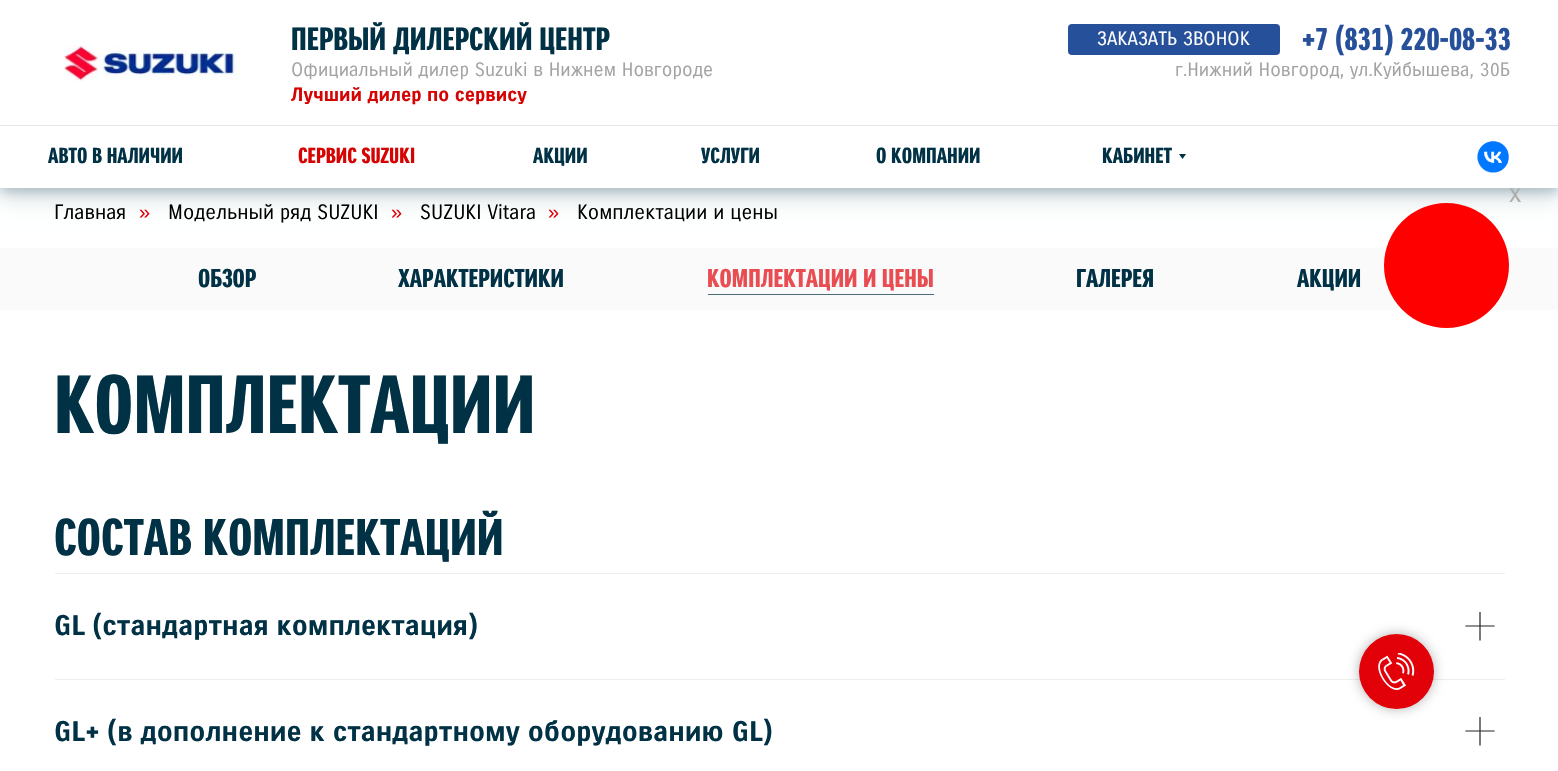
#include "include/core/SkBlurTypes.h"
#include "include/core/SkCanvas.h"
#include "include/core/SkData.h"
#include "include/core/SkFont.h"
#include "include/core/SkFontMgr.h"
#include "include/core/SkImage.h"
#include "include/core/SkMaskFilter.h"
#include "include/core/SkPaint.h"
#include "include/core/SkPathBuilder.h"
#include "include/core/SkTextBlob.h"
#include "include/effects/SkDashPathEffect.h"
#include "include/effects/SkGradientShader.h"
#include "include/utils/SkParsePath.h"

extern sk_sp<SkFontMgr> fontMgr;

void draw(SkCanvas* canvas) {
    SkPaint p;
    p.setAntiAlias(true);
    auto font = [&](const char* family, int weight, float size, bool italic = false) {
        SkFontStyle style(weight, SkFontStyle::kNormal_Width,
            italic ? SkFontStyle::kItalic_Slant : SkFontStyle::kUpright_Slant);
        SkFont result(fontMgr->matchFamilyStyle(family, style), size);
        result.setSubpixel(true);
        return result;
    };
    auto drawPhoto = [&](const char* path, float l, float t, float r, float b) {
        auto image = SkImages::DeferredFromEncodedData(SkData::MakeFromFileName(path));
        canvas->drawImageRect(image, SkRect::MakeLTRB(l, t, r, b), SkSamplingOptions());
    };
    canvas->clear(0xFFFFFFFF);
    p.setColor(0x30003145);
    p.setMaskFilter(SkMaskFilter::MakeBlur(kNormal_SkBlurStyle, 12.5f));
    canvas->drawRect(SkRect::MakeLTRB(0, 8, 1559, 195), p);
    p.setMaskFilter(nullptr);
    p.setColor(0x33003145);
    p.setMaskFilter(SkMaskFilter::MakeBlur(kNormal_SkBlurStyle, 5));
    canvas->drawRect(SkRect::MakeLTRB(0, 5, 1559, 193), p);
    p.setMaskFilter(nullptr);
    p.setColor(0xFFFFFFFF);
    canvas->drawRect(SkRect::MakeLTRB(0, 0, 1558, 188), p);
    auto font1 = font("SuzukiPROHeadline", 700, 31.25f);
    p.setColor(0xFF003145);
    canvas->drawString("ПЕРВЫЙ ДИЛЕРСКИЙ ЦЕНТР", 291, 50, font1, p);
    p.setColor(0xFF27509B);
    canvas->drawRoundRect(SkRect::MakeLTRB(1068, 24, 1280, 55), 4, 4, p);
    auto font2 = font("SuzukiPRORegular", 400, 18.75f);
    p.setColor(0xFFFFFFFF);
    canvas->drawString("ЗАКАЗАТЬ ЗВОНОК", 1097, 45, font2, p);
    p.setColor(0xFF27509B);
    canvas->drawString("+7 (831) 220-08-33", 1302, 50, font1, p);
    drawPhoto("media/1.png", 64, 45, 241, 81);
    p.setColor(0xFFA3A3A3);
    canvas->drawString("Официальный дилер Suzuki в Нижнем Новгороде", 291, 76, font2, p);
    canvas->drawString("г.Нижний Новгород, ул.Куйбышева, 30Б", 1175, 76, font2, p);
    auto font3 = font("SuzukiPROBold", 700, 18.75f);
    p.setColor(0xFFD60303);
    canvas->drawString("Лучший дилер по сервису", 291, 101, font3, p);
    p.setColor(0xFFE0E6E9);
    canvas->drawRect(SkRect::MakeLTRB(0, 125, 1558, 126), p);
    auto font4 = font("SuzukiPROHeadline", 700, 21.25f);
    p.setColor(0xFF003145);
    canvas->drawString("АВТО В НАЛИЧИИ", 48, 163, font4, p);
    p.setColor(0xFFD60303);
    canvas->drawString("СЕРВИС SUZUKI", 298, 163, font4, p);
    p.setColor(0xFF003145);
    {
        const struct { const char* s; float x, y; } items[] = {
            {"АКЦИИ", 533, 163},
            {"УСЛУГИ", 701, 163},
            {"О КОМПАНИИ", 876, 163},
            {"КАБИНЕТ", 1102, 163},
        };
        for (auto [s, x, y] : items) {
            canvas->drawString(s, x, y, font4, p);
        }
    }
    canvas->drawPath(SkPathBuilder().moveTo(1179, 154).lineTo(1186, 154).lineTo(1182.5f, 159).close().detach(), p);
    drawPhoto("media/2.png", 1477, 141, 1509, 173);
    auto font5 = font("SuzukiPRORegular", 400, 25);
    p.setColor(0xFFADADAD);
    canvas->drawString("x", 1509, 202, font5, p);
    p.setColor(0xFFFAFAFA);
    canvas->drawRect(SkRect::MakeLTRB(0, 248, 1558, 310), p);
    p.setColor(0xFFFF0000);
    canvas->drawCircle(1446.5f, 265.5f, 62.5f, p);
    auto font6 = font("SuzukiPRORegular", 400, 20);
    p.setColor(0xFF000000);
    canvas->drawString("Главная", 54, 219, font6, p);
    auto font7 = font("Liberation Sans", 400, 20);
    p.setColor(0xFFE20109);
    canvas->drawString("»", 139, 219, font7, p);
    p.setColor(0xFF000000);
    canvas->drawString("Модельный ряд SUZUKI", 168, 219, font6, p);
    p.setColor(0xFFE20109);
    canvas->drawString("»", 391, 219, font7, p);
    p.setColor(0xFF000000);
    canvas->drawString("SUZUKI Vitara", 420, 219, font6, p);
    p.setColor(0xFFE20109);
    canvas->drawString("»", 548, 219, font7, p);
    p.setColor(0xFF000000);
    canvas->drawString("Комплектации и цены", 577, 219, font6, p);
    auto font8 = font("SuzukiPROHeadline", 700, 25);
    p.setColor(0xFF003145);
    canvas->drawString("ОБЗОР", 198, 287, font8, p);
    canvas->drawString("ХАРАКТЕРИСТИКИ", 398, 287, font8, p);
    p.setColor(0xFFE94C51);
    canvas->drawString("КОМПЛЕКТАЦИИ И ЦЕНЫ", 707, 287, font8, p);
    p.setColor(0xFF4B6D7B);
    canvas->drawRect(SkRect::MakeLTRB(708, 294, 934, 295), p);
    p.setColor(0xFF003145);
    canvas->drawString("ГАЛЕРЕЯ", 1076, 287, font8, p);
    canvas->drawString("АКЦИИ", 1297, 287, font8, p);
    auto font9 = font("SuzukiPROHeadline", 700, 80);
    canvas->drawString("КОМПЛЕКТАЦИИ", 54, 433, font9, p);
    auto font10 = font("SuzukiPROHeadline", 700, 50);
    canvas->drawString("СОСТАВ КОМПЛЕКТАЦИЙ", 54, 555, font10, p);
    p.setColor(0xFFEEEEEE);
    canvas->drawRect(SkRect::MakeLTRB(55, 573, 1505, 574), p);
    auto font11 = font("SuzukiPROBold", 700, 27.5f);
    p.setColor(0xFF003145);
    canvas->drawString("GL (стандартная комплектация)", 54, 635, font11, p);
    p.setStyle(SkPaint::kStroke_Style);
    p.setStrokeWidth(1.2f);
    p.setStrokeCap(SkPaint::kSquare_Cap);
    p.setColor(0xFF222222);
    canvas->drawPath(SkPathBuilder().moveTo(1466, 626).lineTo(1494, 626).moveTo(1480, 612.5f).lineTo(1480, 640).detach(), p);
    p.setStyle(SkPaint::kFill_Style);
    p.setColor(0xFFEEEEEE);
    canvas->drawRect(SkRect::MakeLTRB(55, 679, 1505, 680), p);
    p.setColor(0xFF003145);
    canvas->drawString("GL+ (в дополнение к стандартному оборудованию GL)", 54, 741, font11, p);
    p.setStyle(SkPaint::kStroke_Style);
    p.setColor(0xFF222222);
    canvas->drawPath(SkPathBuilder().moveTo(1466, 731).lineTo(1494, 731).moveTo(1480, 717.5f).lineTo(1480, 745).detach(), p);
    p.setStyle(SkPaint::kFill_Style);
    p.setColor(0x4D000000);
    p.setMaskFilter(SkMaskFilter::MakeBlur(kNormal_SkBlurStyle, 6));
    canvas->drawRoundRect(SkRect::MakeLTRB(1359, 634, 1434, 709), 37.5f, 37.5f, p);
    p.setMaskFilter(nullptr);
    p.setColor(0xFFE20109);
    canvas->drawCircle(1396.5f, 671.5f, 37.5f, p);
    drawPhoto("media/3.png", 1378, 653, 1415, 690);
}
